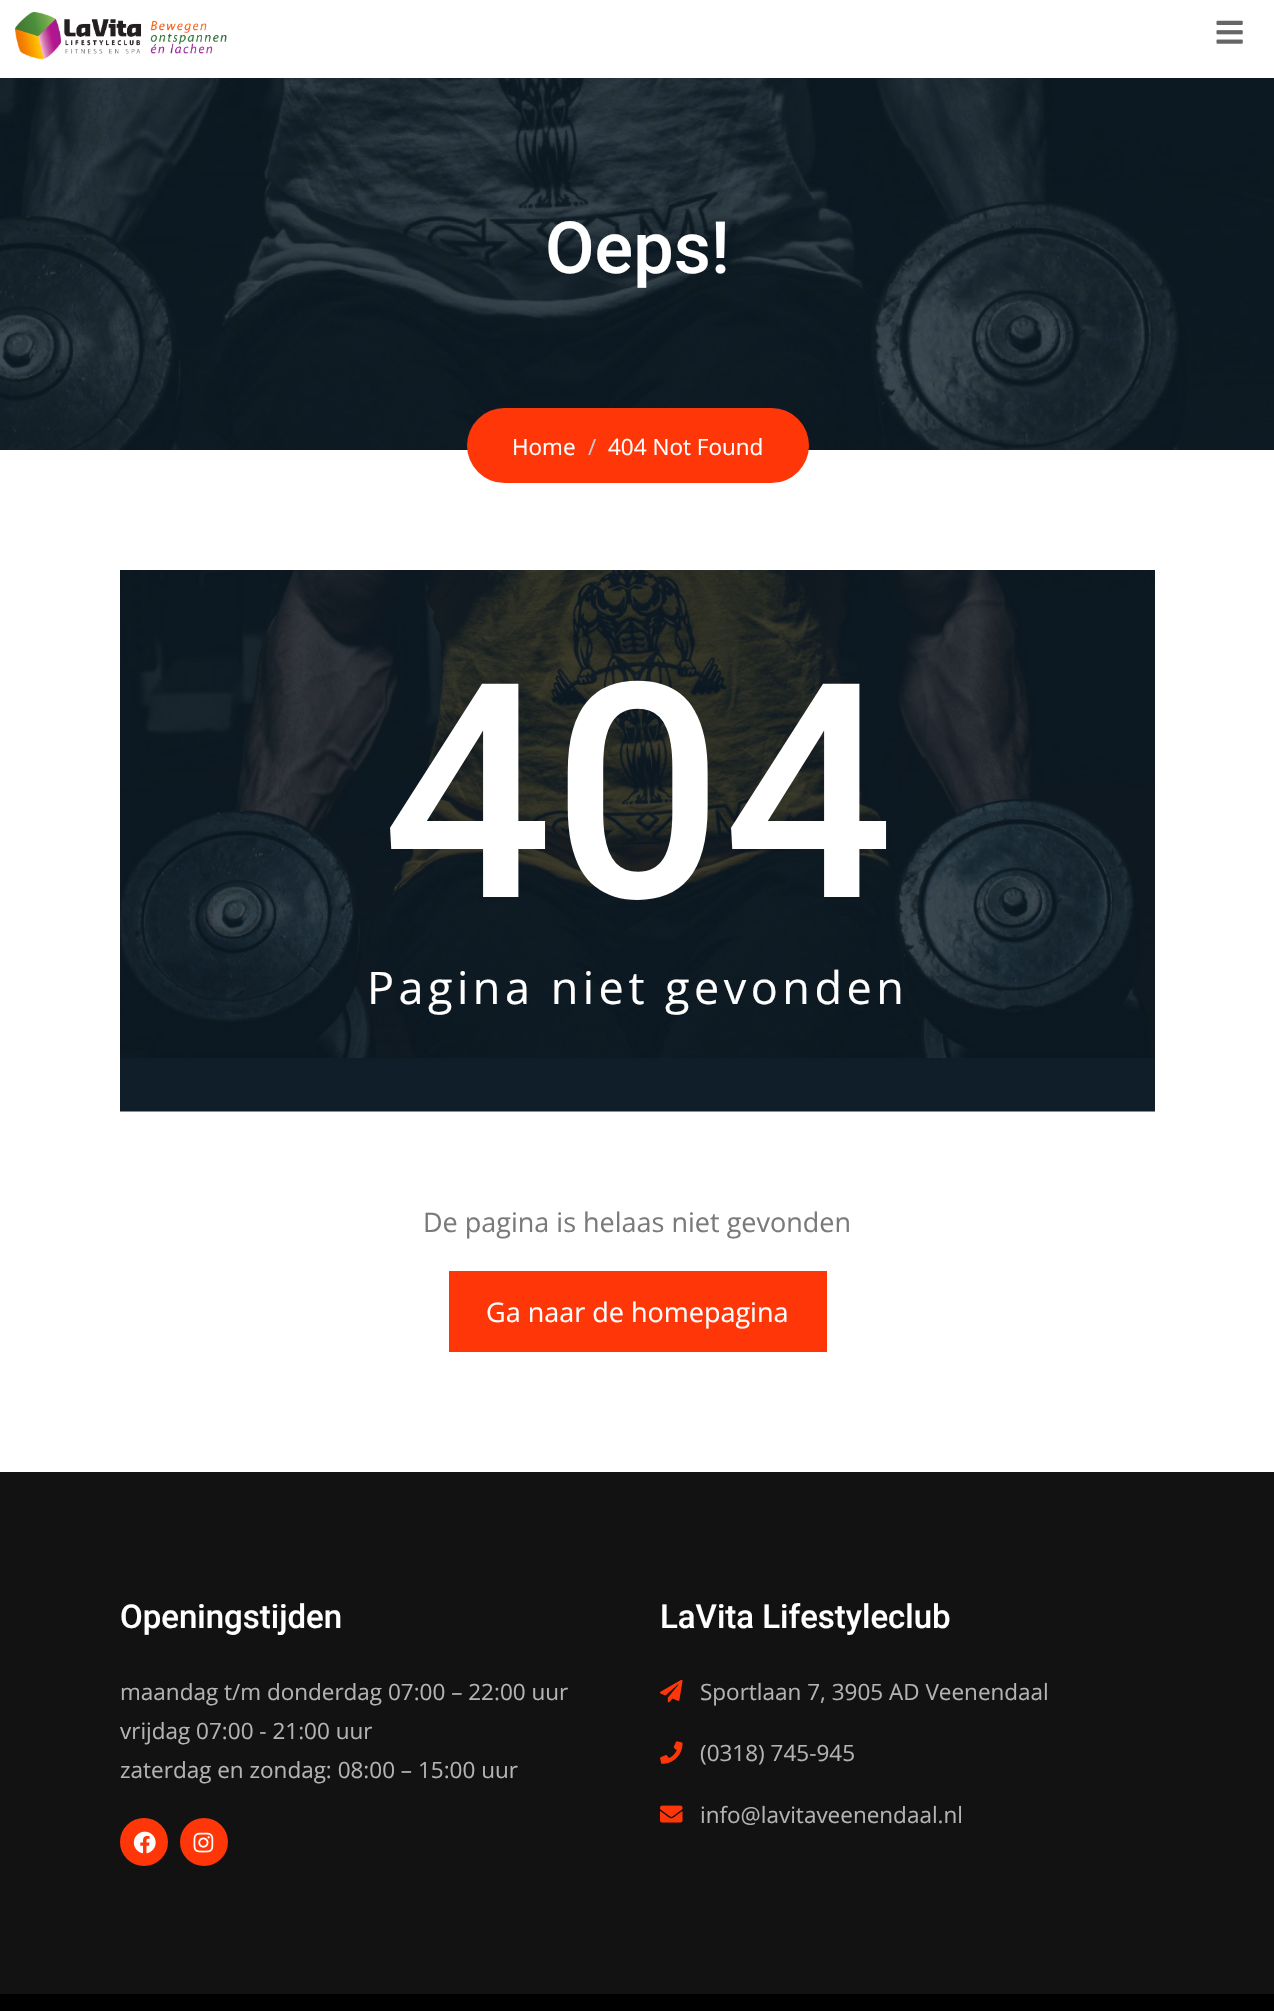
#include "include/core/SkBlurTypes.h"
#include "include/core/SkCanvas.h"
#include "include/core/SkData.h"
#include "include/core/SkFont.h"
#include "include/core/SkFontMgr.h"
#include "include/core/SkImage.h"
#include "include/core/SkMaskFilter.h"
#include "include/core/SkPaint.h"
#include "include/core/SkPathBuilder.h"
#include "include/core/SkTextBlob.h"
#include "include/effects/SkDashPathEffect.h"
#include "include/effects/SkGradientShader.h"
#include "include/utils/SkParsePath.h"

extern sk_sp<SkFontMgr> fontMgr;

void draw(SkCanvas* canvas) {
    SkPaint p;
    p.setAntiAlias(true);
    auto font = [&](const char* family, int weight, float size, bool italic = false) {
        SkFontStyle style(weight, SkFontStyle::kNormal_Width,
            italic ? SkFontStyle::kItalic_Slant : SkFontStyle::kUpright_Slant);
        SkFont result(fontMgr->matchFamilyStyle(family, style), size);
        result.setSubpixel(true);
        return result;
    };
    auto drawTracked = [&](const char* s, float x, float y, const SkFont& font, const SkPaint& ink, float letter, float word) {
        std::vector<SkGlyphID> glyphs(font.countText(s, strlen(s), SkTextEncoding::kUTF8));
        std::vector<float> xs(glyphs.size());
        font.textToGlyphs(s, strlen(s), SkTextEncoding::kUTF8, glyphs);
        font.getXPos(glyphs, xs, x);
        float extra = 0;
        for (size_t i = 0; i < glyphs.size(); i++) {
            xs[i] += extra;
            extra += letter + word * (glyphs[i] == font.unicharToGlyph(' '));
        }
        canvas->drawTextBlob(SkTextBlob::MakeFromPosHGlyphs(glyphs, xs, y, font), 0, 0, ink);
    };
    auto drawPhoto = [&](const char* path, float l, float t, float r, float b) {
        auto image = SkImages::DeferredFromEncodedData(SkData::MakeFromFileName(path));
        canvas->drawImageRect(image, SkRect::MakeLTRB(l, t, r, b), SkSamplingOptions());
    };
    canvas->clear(0xFFFFFFFF);
    drawPhoto("media/1.png", 15, 12, 227, 60);
    drawPhoto("media/2.png", 1216, 20, 1243, 44);
    drawPhoto("media/3.png", 0, 78, 1274, 450);
    auto font1 = font("Roboto", 500, 72);
    p.setColor(0xFFFFFFFF);
    canvas->drawString("Oeps!", 545, 273, font1, p);
    p.setColor(0xFFFF3608);
    canvas->drawRoundRect(SkRect::MakeLTRB(467, 408, 809, 483), 37.5f, 37.5f, p);
    auto font2 = font("Open Sans", 400, 22.5f);
    p.setColor(0xFFFFFFFF);
    canvas->drawString("Home", 512, 455, font2, p);
    p.setColor(0xFFCCCCCC);
    canvas->drawString("/", 588, 455, font2, p);
    p.setColor(0xFFFFFFFF);
    canvas->drawString("404 Not Found", 608, 455, font2, p);
    drawPhoto("media/4.png", 120, 570, 1155, 1112);
    auto font3 = font("Roboto", 500, 300);
    canvas->drawString("404", 382, 897, font3, p);
    auto font4 = font("Open Sans", 400, 45);
    drawTracked("Pagina niet gevonden", 367, 1004, font4, p, 4.5f, 0);
    auto font5 = font("Open Sans", 400, 27);
    p.setColor(0xFF7A7A7A);
    canvas->drawString("De pagina is helaas niet gevonden", 423, 1232, font5, p);
    p.setColor(0xFFFF3608);
    canvas->drawRect(SkRect::MakeLTRB(449, 1271, 827, 1352), p);
    p.setColor(0xFFFFFFFF);
    canvas->drawString("Ga naar de homepagina", 486, 1322, font5, p);
    p.setColor(0xFF121212);
    canvas->drawRect(SkRect::MakeLTRB(0, 1472, 1274, 1994), p);
    auto font6 = font("Roboto", 500, 33);
    p.setColor(0xFFFFFFFF);
    canvas->drawString("Openingstijden", 120, 1628, font6, p);
    p.setColor(0xFFB3B3B3);
    {
        const struct { const char* s; float x, y; } items[] = {
            {"maandag t/m donderdag 07:00 – 22:00 uur", 120, 1700},
            {"vrijdag 07:00 - 21:00 uur", 120, 1739},
            {"zaterdag en zondag: 08:00 – 15:00 uur", 120, 1778},
        };
        for (auto [s, x, y] : items) {
            canvas->drawString(s, x, y, font2, p);
        }
    }
    p.setColor(0xFFFF3608);
    canvas->drawCircle(144, 1842, 24, p);
    drawPhoto("media/5.png", 133, 1831, 156, 1854);
    canvas->drawCircle(204, 1842, 24, p);
    drawPhoto("media/6.png", 193, 1832, 214, 1853);
    p.setColor(0xFFFFFFFF);
    canvas->drawString("LaVita Lifestyleclub", 660, 1628, font6, p);
    drawPhoto("media/7.png", 660, 1679, 683, 1703);
    p.setColor(0xFFB3B3B3);
    canvas->drawString("Sportlaan 7, 3905 AD Veenendaal", 700, 1700, font2, p);
    drawPhoto("media/8.png", 660, 1741, 683, 1764);
    canvas->drawString("(0318) 745-945", 700, 1761, font2, p);
    drawPhoto("media/9.png", 660, 1805, 683, 1823);
    canvas->drawString("info@lavitaveenendaal.nl", 700, 1823, font2, p);
    p.setColor(0xFF000000);
    canvas->drawRect(SkRect::MakeLTRB(0, 1994, 1274, 2011), p);
}
